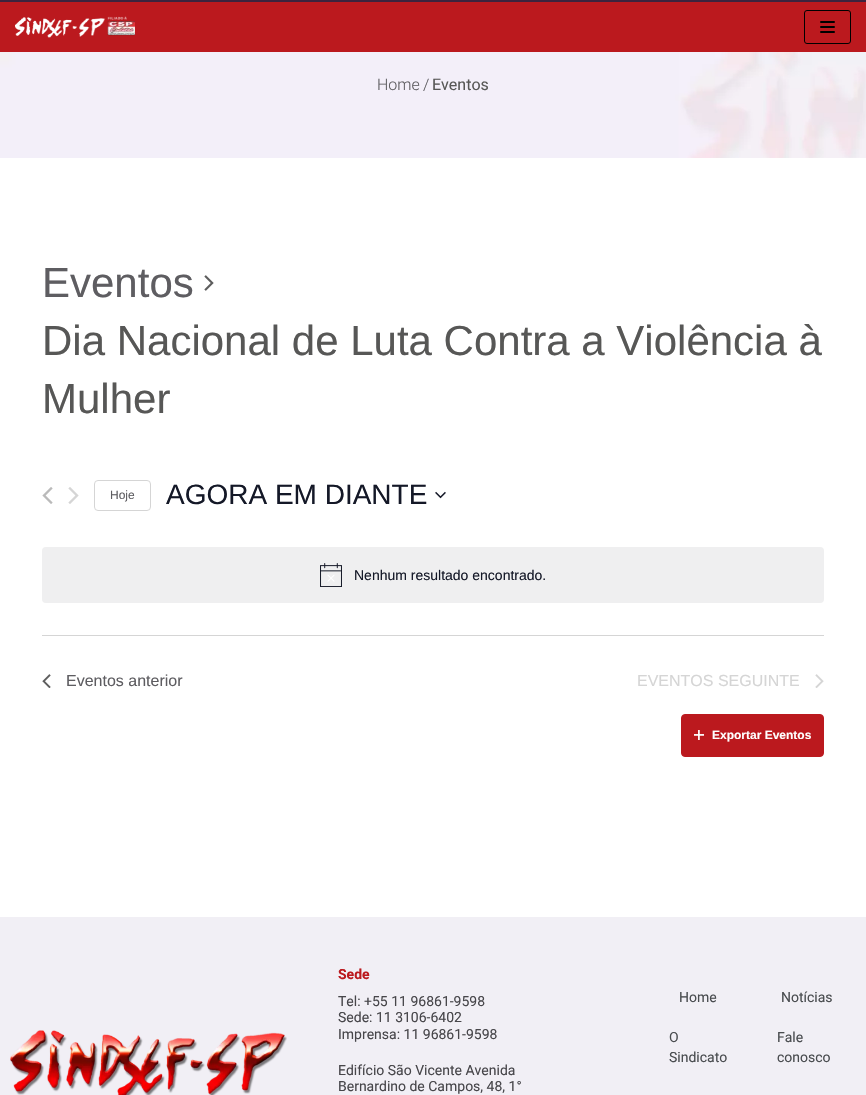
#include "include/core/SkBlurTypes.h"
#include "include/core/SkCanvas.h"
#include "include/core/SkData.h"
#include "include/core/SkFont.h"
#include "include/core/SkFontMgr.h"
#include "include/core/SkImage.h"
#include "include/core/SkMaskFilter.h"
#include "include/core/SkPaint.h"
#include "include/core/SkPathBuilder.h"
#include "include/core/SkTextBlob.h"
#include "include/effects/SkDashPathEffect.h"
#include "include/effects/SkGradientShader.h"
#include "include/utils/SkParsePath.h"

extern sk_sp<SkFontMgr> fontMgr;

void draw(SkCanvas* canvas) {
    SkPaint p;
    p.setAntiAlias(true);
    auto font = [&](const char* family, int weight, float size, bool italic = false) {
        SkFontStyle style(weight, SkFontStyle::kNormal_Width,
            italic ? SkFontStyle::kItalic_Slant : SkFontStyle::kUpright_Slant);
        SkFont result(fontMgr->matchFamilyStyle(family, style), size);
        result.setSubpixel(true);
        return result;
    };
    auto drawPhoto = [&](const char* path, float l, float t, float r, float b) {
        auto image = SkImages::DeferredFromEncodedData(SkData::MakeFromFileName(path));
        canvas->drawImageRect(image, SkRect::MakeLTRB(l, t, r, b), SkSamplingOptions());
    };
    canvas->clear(0xFFFFFFFF);
    p.setColor(0xFFBB191E);
    canvas->drawRect(SkRect::MakeLTRB(0, 2, 866, 52), p);
    p.setColor(0xFF3C233E);
    canvas->drawRect(SkRect::MakeLTRB(0, 0, 866, 2), p);
    drawPhoto("media/1.png", 15, 16, 135, 38);
    p.setStyle(SkPaint::kStroke_Style);
    p.setStrokeWidth(1);
    p.setColor(0xFF000000);
    canvas->drawRoundRect(SkRect::MakeLTRB(804.5f, 10.5f, 850.5f, 43.5f), 2.5f, 2.5f, p);
    p.setStyle(SkPaint::kFill_Style);
    canvas->drawRoundRect(SkRect::MakeLTRB(820, 21, 835, 23), 1, 1, p);
    canvas->drawRoundRect(SkRect::MakeLTRB(820, 26, 835, 28), 1, 1, p);
    canvas->drawRoundRect(SkRect::MakeLTRB(820, 31, 835, 33), 1, 1, p);
    drawPhoto("media/2.png", 0, 52, 866, 158);
    auto font1 = font("Roboto", 300, 16);
    p.setColor(0xFF5E5D61);
    canvas->drawString("Home", 377, 90, font1, p);
    canvas->drawString("/", 423, 90, font1, p);
    auto font2 = font("Roboto", 400, 16);
    p.setColor(0xFF575756);
    canvas->drawString("Eventos", 432, 90, font2, p);
    auto font3 = font("Liberation Sans", 400, 42);
    p.setColor(0xFF5E5D61);
    canvas->drawString("Eventos", 42, 297, font3, p);
    drawPhoto("media/3.png", 204, 275, 214, 291);
    p.setColor(0xFF575756);
    canvas->drawString("Dia Nacional de Luta Contra a Violência à", 42, 355, font3, p);
    canvas->drawString("Mulher", 42, 413, font3, p);
    drawPhoto("media/4.png", 42, 487, 53, 504);
    drawPhoto("media/5.png", 68, 487, 79, 504);
    p.setStyle(SkPaint::kStroke_Style);
    p.setColor(0xFFD5D5D5);
    canvas->drawRoundRect(SkRect::MakeLTRB(94.5f, 480.5f, 150.5f, 510.5f), 3.5f, 3.5f, p);
    auto font4 = font("Liberation Sans", 400, 12);
    p.setStyle(SkPaint::kFill_Style);
    p.setColor(0xFF5E5D61);
    canvas->drawString("Hoje", 110, 499, font4, p);
    auto font5 = font("Liberation Sans", 400, 28);
    p.setColor(0xFF141827);
    canvas->drawString("AGORA EM DIANTE", 166, 504, font5, p);
    drawPhoto("media/6.png", 435, 491, 446, 499);
    p.setColor(0xFFEFEFF0);
    canvas->drawRoundRect(SkRect::MakeLTRB(42, 547, 824, 603), 4, 4, p);
    drawPhoto("media/7.png", 320, 563, 342, 587);
    auto font6 = font("Liberation Sans", 400, 14);
    p.setColor(0xFF141827);
    canvas->drawString("Nenhum resultado encontrado.", 354, 580, font6, p);
    p.setColor(0xFFD5D5D5);
    canvas->drawRect(SkRect::MakeLTRB(42, 635, 824, 636), p);
    drawPhoto("media/8.png", 42, 674, 51, 688);
    auto font7 = font("Liberation Sans", 400, 16);
    p.setColor(0xFF5E5D61);
    canvas->drawString("Eventos anterior", 66, 686, font7, p);
    p.setColor(0xFFD5D5D5);
    canvas->drawString("EVENTOS SEGUINTE", 637, 686, font7, p);
    drawPhoto("media/9.png", 815, 674, 824, 688);
    p.setColor(0xFFBB191E);
    canvas->drawRoundRect(SkRect::MakeLTRB(681.5f, 714.5f, 823.5f, 756.5f), 3.5f, 3.5f, p);
    p.setStyle(SkPaint::kStroke_Style);
    canvas->drawRoundRect(SkRect::MakeLTRB(681.5f, 714.5f, 823.5f, 756.5f), 3.5f, 3.5f, p);
    drawPhoto("media/10.png", 694, 730, 704, 740);
    auto font8 = font("Liberation Sans", 700, 12);
    p.setStyle(SkPaint::kFill_Style);
    p.setColor(0xFFFFFFFF);
    canvas->drawString("Exportar Eventos", 712, 739, font8, p);
    p.setColor(0xFFF1EFF5);
    canvas->drawRect(SkRect::MakeLTRB(0, 917, 866, 1095), p);
    drawPhoto("media/11.png", 10, 1030, 287, 1095);
    auto font9 = font("Roboto", 700, 14);
    p.setColor(0xFFBB191E);
    canvas->drawString("Sede", 338, 979, font9, p);
    auto font10 = font("Roboto", 400, 14);
    p.setColor(0xFF47464A);
    {
        const struct { const char* s; float x, y; } items[] = {
            {"Tel: +55 11 96861-9598", 338, 1006},
            {"Sede: 11 3106-6402", 338, 1022},
            {"Imprensa: 11 96861-9598", 338, 1039},
            {"Edifício São Vicente Avenida", 338, 1075},
            {"Bernardino de Campos, 48, 1°", 338, 1091},
        };
        for (auto [s, x, y] : items) {
            canvas->drawString(s, x, y, font10, p);
        }
    }
    p.setColor(0xFF494C4F);
    {
        const struct { const char* s; float x, y; } items[] = {
            {"Home", 679, 1002},
            {"O", 669, 1042},
            {"Sindicato", 669, 1062},
            {"Notícias", 781, 1002},
            {"Fale", 777, 1042},
            {"conosco", 777, 1062},
        };
        for (auto [s, x, y] : items) {
            canvas->drawString(s, x, y, font10, p);
        }
    }
}
